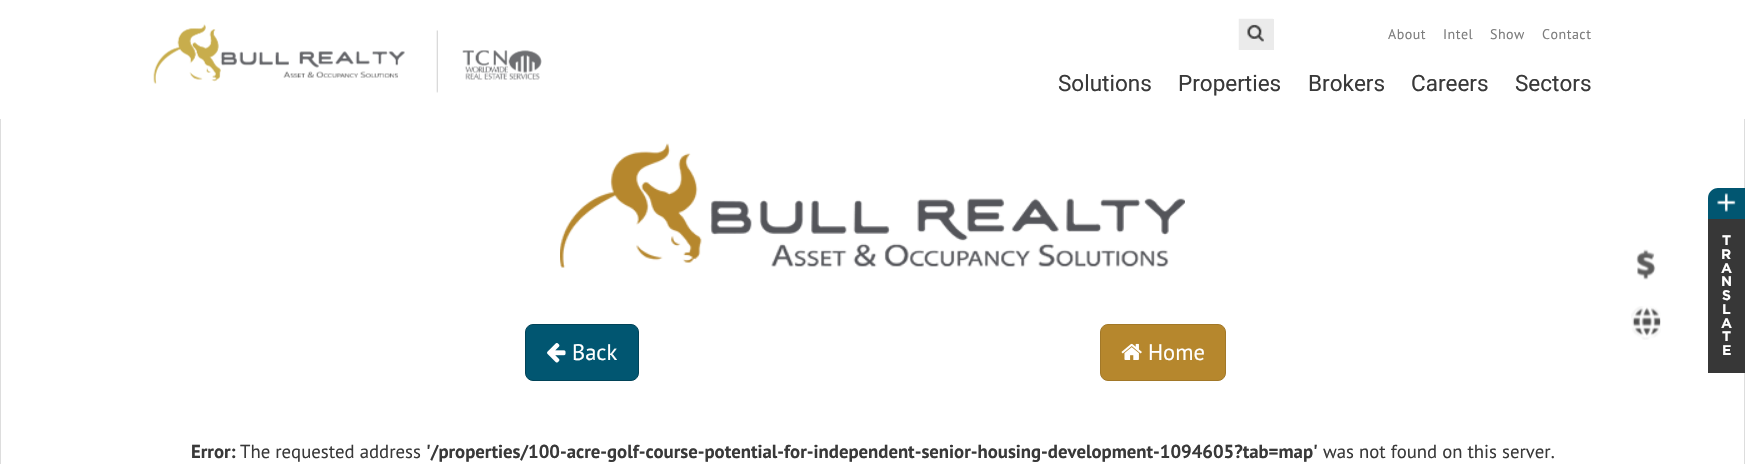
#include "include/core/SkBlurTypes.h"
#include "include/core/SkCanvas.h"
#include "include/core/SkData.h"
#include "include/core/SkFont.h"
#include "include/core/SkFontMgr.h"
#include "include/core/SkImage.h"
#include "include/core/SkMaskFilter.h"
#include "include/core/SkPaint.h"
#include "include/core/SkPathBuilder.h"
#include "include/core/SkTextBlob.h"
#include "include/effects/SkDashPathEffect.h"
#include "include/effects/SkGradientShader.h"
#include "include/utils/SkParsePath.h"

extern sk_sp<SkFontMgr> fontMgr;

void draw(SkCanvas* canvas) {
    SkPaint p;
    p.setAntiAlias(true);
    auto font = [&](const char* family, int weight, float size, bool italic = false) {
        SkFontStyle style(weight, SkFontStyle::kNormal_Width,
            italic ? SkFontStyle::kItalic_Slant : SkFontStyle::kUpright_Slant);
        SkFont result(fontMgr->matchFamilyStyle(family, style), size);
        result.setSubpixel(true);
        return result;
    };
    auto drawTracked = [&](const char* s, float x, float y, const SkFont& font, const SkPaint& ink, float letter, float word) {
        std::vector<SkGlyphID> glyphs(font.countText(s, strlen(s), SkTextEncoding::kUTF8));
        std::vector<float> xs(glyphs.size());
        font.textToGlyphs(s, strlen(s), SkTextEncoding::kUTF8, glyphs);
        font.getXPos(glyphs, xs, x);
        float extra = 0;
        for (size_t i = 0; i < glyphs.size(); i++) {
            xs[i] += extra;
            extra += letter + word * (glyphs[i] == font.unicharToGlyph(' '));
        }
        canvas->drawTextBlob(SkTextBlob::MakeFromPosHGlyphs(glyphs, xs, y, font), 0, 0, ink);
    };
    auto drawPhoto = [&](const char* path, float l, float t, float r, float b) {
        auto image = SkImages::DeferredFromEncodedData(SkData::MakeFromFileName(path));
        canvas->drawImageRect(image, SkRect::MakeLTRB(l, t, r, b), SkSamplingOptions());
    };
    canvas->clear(0xFFFFFFFF);
    p.setStyle(SkPaint::kStroke_Style);
    p.setStrokeWidth(1);
    p.setColor(0xFFDDDDDD);
    canvas->drawRect(SkRect::MakeLTRB(0.5f, 0.5f, 1744.5f, 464.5f), p);
    p.setStyle(SkPaint::kFill_Style);
    p.setColor(0xFFFFFFFF);
    canvas->drawRect(SkRect::MakeLTRB(0, 0, 1745, 119), p);
    drawPhoto("media/1.png", 153, 24, 542, 93);
    drawPhoto("media/2.png", 1238, 18, 1273, 50);
    p.setColor(0xFFEBEBEB);
    canvas->drawRect(SkRect::MakeLTRB(1273, 19, 1274, 50), p);
    auto font1 = font("PT Sans", 400, 14);
    p.setColor(0xFF7D7D7D);
    {
        const struct { const char* s; float x, y; } items[] = {
            {"About", 1388, 39},
            {"Intel", 1443, 39},
            {"Show", 1490, 39},
            {"Contact", 1542, 39},
        };
        for (auto [s, x, y] : items) {
            drawTracked(s, x, y, font1, p, 0.5f, 0);
        }
    }
    auto font2 = font("Roboto", 400, 22.5f);
    p.setColor(0xFF393939);
    {
        const struct { const char* s; float x, y; } items[] = {
            {"Solutions", 1058, 91},
            {"Properties", 1178, 91},
            {"Brokers", 1308, 91},
            {"Careers", 1411, 91},
            {"Sectors", 1515, 91},
        };
        for (auto [s, x, y] : items) {
            canvas->drawString(s, x, y, font2, p);
        }
    }
    drawPhoto("media/3.png", 1636, 249, 1656, 280);
    drawPhoto("media/4.png", 1631, 306, 1661, 340);
    p.setColor(0xFF015671);
    canvas->drawPath(SkPathBuilder().moveTo(1718, 188).lineTo(1745, 188).lineTo(1745, 219).lineTo(1708, 219).lineTo(1708, 198).cubicTo(1708, 192.5f, 1712.5f, 188, 1718, 188).close().detach(), p);
    drawPhoto("media/5.png", 1717, 193, 1736, 212);
    p.setColor(0xFF373737);
    canvas->drawRect(SkRect::MakeLTRB(1708, 219, 1745, 373), p);
    auto font3 = font("Gotham", 700, 14);
    p.setColor(0xFFFFFFFF);
    {
        const struct { const char* s; float x, y; } items[] = {
            {"T", 1722, 245},
            {"R", 1721, 259},
            {"A", 1721, 273},
            {"N", 1721, 286},
            {"S", 1722, 300},
            {"L", 1722, 314},
            {"A", 1721, 328},
            {"T", 1722, 341},
            {"E", 1722, 355},
        };
        for (auto [s, x, y] : items) {
            canvas->drawString(s, x, y, font3, p);
        }
    }
    drawPhoto("media/6.png", 560, 143, 1185, 268);
    p.setColor(0xFF015671);
    canvas->drawRoundRect(SkRect::MakeLTRB(525.5f, 324.5f, 638.5f, 380.5f), 7.5f, 7.5f, p);
    p.setStyle(SkPaint::kStroke_Style);
    p.setColor(0xFF014358);
    canvas->drawRoundRect(SkRect::MakeLTRB(525.5f, 324.5f, 638.5f, 380.5f), 7.5f, 7.5f, p);
    drawPhoto("media/7.png", 547, 343, 566, 363);
    auto font4 = font("PT Sans", 400, 22.5f);
    p.setStyle(SkPaint::kFill_Style);
    p.setColor(0xFFFFFFFF);
    canvas->drawString("Back", 572, 360, font4, p);
    p.setColor(0xFFB6872D);
    canvas->drawRoundRect(SkRect::MakeLTRB(1100.5f, 324.5f, 1225.5f, 380.5f), 7.5f, 7.5f, p);
    p.setStyle(SkPaint::kStroke_Style);
    p.setColor(0xFFA27828);
    canvas->drawRoundRect(SkRect::MakeLTRB(1100.5f, 324.5f, 1225.5f, 380.5f), 7.5f, 7.5f, p);
    drawPhoto("media/8.png", 1121, 343, 1142, 360);
    p.setStyle(SkPaint::kFill_Style);
    p.setColor(0xFFFFFFFF);
    canvas->drawString("Home", 1148, 360, font4, p);
    auto font5 = font("PT Sans", 700, 18.75f);
    p.setColor(0xFF393939);
    canvas->drawString("Error:", 191, 458, font5, p);
    auto font6 = font("PT Sans", 400, 18.75f);
    canvas->drawString("The requested address", 240, 458, font6, p);
    canvas->drawString("'/properties/100-acre-golf-course-potential-for-independent-senior-housing-development-1094605?tab=map'", 426, 458, font5, p);
    canvas->drawString("was not found on this server.", 1323, 458, font6, p);
}
